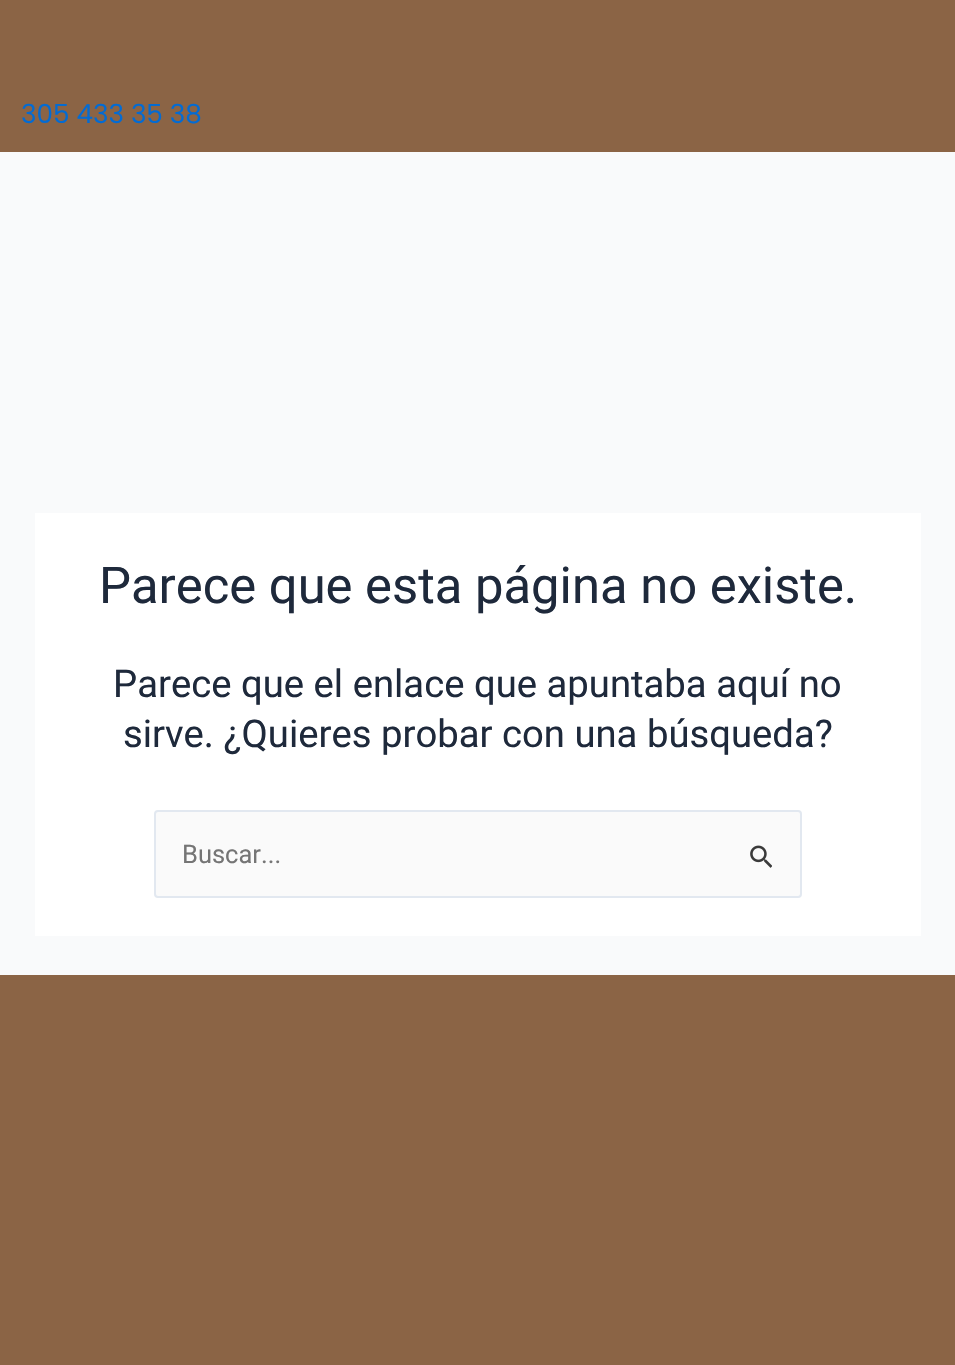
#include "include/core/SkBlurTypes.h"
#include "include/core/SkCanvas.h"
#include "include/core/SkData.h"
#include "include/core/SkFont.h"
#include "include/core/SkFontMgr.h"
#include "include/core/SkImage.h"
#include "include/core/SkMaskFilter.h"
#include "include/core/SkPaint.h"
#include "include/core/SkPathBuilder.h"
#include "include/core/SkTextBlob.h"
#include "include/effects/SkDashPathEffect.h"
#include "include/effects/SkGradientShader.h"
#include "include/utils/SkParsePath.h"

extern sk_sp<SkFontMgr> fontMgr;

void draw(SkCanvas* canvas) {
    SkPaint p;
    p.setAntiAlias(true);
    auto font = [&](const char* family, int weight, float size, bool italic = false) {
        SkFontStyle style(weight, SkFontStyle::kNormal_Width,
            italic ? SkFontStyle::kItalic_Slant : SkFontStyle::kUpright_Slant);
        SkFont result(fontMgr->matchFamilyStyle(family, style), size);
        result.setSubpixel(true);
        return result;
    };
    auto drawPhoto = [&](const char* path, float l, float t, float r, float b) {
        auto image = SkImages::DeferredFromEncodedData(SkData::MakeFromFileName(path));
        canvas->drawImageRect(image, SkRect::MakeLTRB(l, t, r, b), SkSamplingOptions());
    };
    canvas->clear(0xFFF9FAFB);
    p.setColor(0xFF8B6445);
    canvas->drawRect(SkRect::MakeLTRB(0, 0, 955, 152), p);
    auto font1 = font("Poppins", 400, 26.25f);
    p.setColor(0xFF046BD2);
    canvas->drawString("305 433 35 38", 21, 123, font1, p);
    p.setColor(0xFFFFFFFF);
    canvas->drawRect(SkRect::MakeLTRB(35, 513, 921, 936), p);
    auto font2 = font("Roboto", 400, 50.75f);
    p.setColor(0xFF1E293B);
    canvas->drawString("Parece que esta página no existe.", 99, 603, font2, p);
    auto font3 = font("Roboto", 400, 38.25f);
    canvas->drawString("Parece que el enlace que apuntaba aquí no", 113, 697, font3, p);
    canvas->drawString("sirve. ¿Quieres probar con una búsqueda?", 123, 747, font3, p);
    p.setColor(0xFFFAFAFA);
    canvas->drawRoundRect(SkRect::MakeLTRB(155, 811, 801, 897), 3, 3, p);
    p.setStyle(SkPaint::kStroke_Style);
    p.setStrokeWidth(2);
    p.setColor(0xFFE2E8F0);
    canvas->drawRoundRect(SkRect::MakeLTRB(155, 811, 801, 897), 3, 3, p);
    auto font4 = font("Roboto", 400, 25.5f);
    p.setStyle(SkPaint::kFill_Style);
    p.setColor(0xFF757575);
    canvas->drawString("Buscar...", 182, 863, font4, p);
    drawPhoto("media/1.png", 750, 845, 772, 868);
    p.setColor(0xFF8B6445);
    canvas->drawRect(SkRect::MakeLTRB(0, 975, 955, 1365), p);
}
